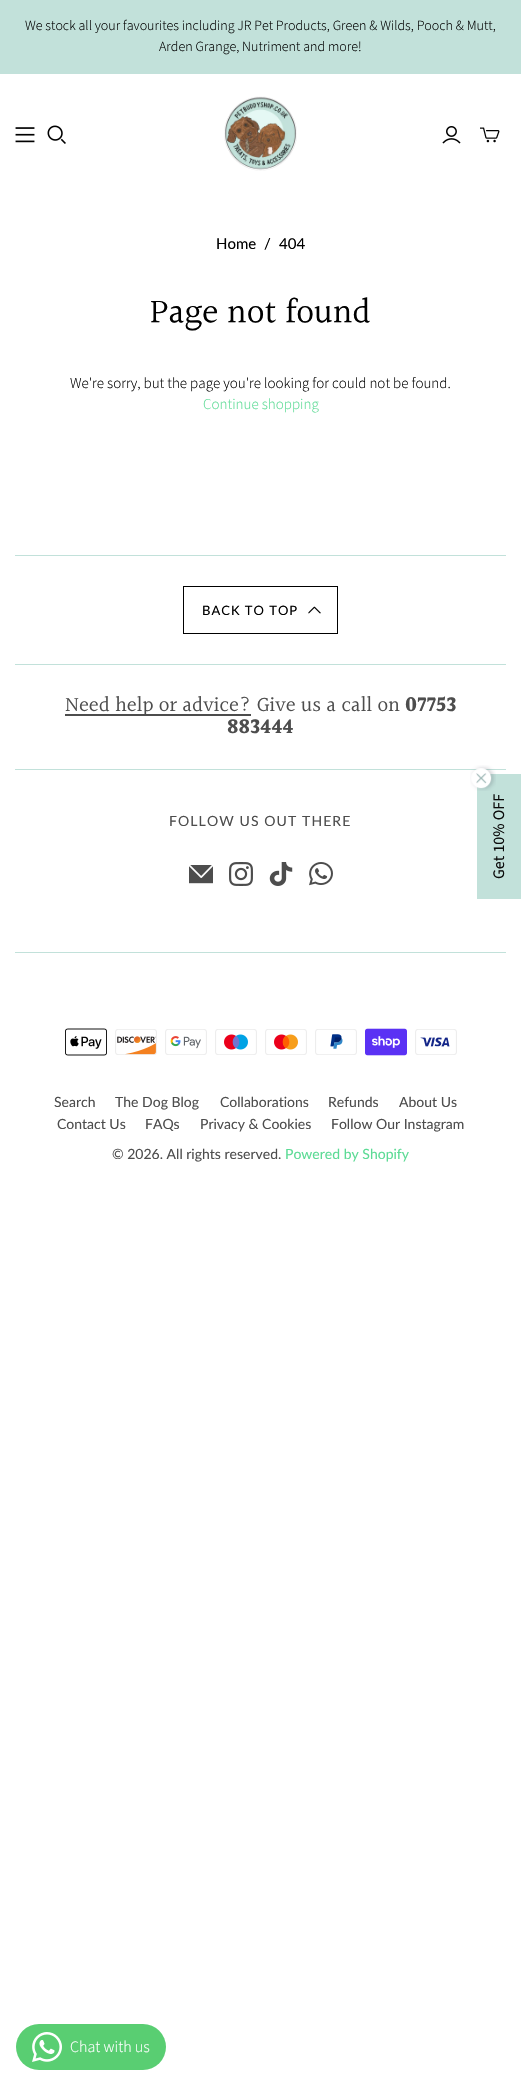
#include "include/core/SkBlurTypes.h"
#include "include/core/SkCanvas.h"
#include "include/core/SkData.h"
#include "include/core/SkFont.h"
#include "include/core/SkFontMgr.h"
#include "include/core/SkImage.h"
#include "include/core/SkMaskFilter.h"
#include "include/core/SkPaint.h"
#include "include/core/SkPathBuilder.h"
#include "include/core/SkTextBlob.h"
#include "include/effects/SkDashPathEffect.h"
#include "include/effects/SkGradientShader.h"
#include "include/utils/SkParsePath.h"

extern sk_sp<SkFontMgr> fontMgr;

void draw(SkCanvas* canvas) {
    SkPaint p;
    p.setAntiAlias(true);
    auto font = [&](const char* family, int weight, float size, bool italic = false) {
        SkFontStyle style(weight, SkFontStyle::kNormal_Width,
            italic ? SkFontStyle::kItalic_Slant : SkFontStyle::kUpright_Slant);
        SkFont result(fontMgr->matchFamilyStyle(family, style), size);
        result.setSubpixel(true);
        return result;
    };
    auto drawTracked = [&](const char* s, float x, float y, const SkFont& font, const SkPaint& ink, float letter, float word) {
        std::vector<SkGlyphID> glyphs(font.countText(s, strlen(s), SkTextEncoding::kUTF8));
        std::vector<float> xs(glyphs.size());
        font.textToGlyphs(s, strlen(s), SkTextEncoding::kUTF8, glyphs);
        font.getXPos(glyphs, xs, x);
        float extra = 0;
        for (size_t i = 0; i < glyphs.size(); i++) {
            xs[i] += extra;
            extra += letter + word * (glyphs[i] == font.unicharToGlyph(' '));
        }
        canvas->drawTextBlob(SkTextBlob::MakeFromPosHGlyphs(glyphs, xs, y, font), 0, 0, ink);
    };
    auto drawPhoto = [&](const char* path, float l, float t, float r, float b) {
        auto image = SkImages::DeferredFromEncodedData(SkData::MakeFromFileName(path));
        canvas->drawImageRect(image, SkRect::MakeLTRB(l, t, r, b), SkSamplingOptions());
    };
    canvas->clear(0xFFFFFFFF);
    p.setColor(0xFFC2E1DA);
    canvas->drawRect(SkRect::MakeLTRB(0, 0, 521, 74), p);
    auto font1 = font("Source Sans Pro", 300, 14);
    p.setColor(0xFF000000);
    canvas->drawString("We stock all your favourites including JR Pet Products, Green & Wilds, Pooch & Mutt,", 25, 30, font1, p);
    canvas->drawString("Arden Grange, Nutriment and more!", 159, 51, font1, p);
    drawPhoto("media/1.png", 224, 96, 297, 171);
    drawPhoto("media/2.png", 15, 127, 35, 143);
    drawPhoto("media/3.png", 47, 125, 66, 144);
    drawPhoto("media/4.png", 442, 126, 461, 144);
    drawPhoto("media/5.png", 480, 127, 500, 143);
    auto font2 = font("Lato", 400, 15);
    {
        const struct { const char* s; float x, y; } items[] = {
            {"Home", 216, 249},
            {"/", 264, 249},
            {"404", 279, 249},
        };
        for (auto [s, x, y] : items) {
            canvas->drawString(s, x, y, font2, p);
        }
    }
    auto font3 = font("Halant", 400, 35);
    canvas->drawString("Page not found", 150, 324, font3, p);
    auto font4 = font("Source Sans Pro", 300, 15);
    canvas->drawString("We're sorry, but the page you're looking for could not be found.", 70, 388, font4, p);
    p.setColor(0xFF5CDB95);
    canvas->drawString("Continue shopping", 203, 409, font4, p);
    p.setColor(0xFFC2E1DA);
    canvas->drawRect(SkRect::MakeLTRB(15, 555, 506, 556), p);
    p.setStyle(SkPaint::kStroke_Style);
    p.setStrokeWidth(1);
    p.setColor(0xFF000000);
    canvas->drawRect(SkRect::MakeLTRB(183.5f, 586.5f, 337.5f, 633.5f), p);
    auto font5 = font("Lato", 400, 13);
    p.setStyle(SkPaint::kFill_Style);
    drawTracked("BACK TO TOP", 202, 615, font5, p, 1, 0);
    drawPhoto("media/6.png", 308, 606, 321, 614);
    {
        const struct { float l, t, r, b; SkColor color; } items[] = {
            {15, 664, 506, 665, 0xFFC2E1DA},
            {15, 952, 506, 953, 0xFFC2E1DA},
            {65, 714, 251, 716, 0xFF4D4D4D},
        };
        for (auto [l, t, r, b, color] : items) {
            p.setColor(color);
            canvas->drawRect(SkRect::MakeLTRB(l, t, r, b), p);
        }
    }
    auto font6 = font("Halant", 400, 21);
    canvas->drawString("Need help or advice? Give us a call on", 65, 712, font6, p);
    auto font7 = font("Halant", 700, 21);
    canvas->drawString("07753", 405, 712, font7, p);
    canvas->drawString("883444", 227, 734, font7, p);
    p.setColor(0xFFC2E1DA);
    canvas->drawRect(SkRect::MakeLTRB(15, 769, 506, 770), p);
    auto font8 = font("Lato", 400, 14);
    p.setColor(0xFF4D4D4D);
    drawTracked("FOLLOW US OUT THERE", 169, 826, font8, p, 1.1f, 0);
    drawPhoto("media/7.png", 189, 865, 213, 884);
    drawPhoto("media/8.png", 229, 862, 253, 886);
    drawPhoto("media/9.png", 269, 862, 293, 886);
    drawPhoto("media/10.png", 309, 862, 333, 886);
    drawPhoto("media/11.png", 65, 1028, 107, 1056);
    drawPhoto("media/12.png", 115, 1029, 157, 1055);
    drawPhoto("media/13.png", 165, 1029, 207, 1055);
    drawPhoto("media/14.png", 215, 1029, 257, 1055);
    drawPhoto("media/15.png", 265, 1029, 307, 1055);
    drawPhoto("media/16.png", 315, 1029, 357, 1055);
    drawPhoto("media/17.png", 365, 1028, 407, 1056);
    drawPhoto("media/18.png", 415, 1029, 457, 1055);
    {
        const struct { const char* s; float x, y; } items[] = {
            {"Search", 54, 1107},
            {"The Dog Blog", 115, 1107},
            {"Collaborations", 220, 1107},
            {"Refunds", 328, 1107},
            {"About Us", 399, 1107},
            {"Contact Us", 57, 1129},
            {"FAQs", 145, 1129},
            {"Privacy & Cookies", 200, 1129},
            {"Follow Our Instagram", 331, 1129},
            {"© 2026. All rights reserved.", 112, 1159},
        };
        for (auto [s, x, y] : items) {
            canvas->drawString(s, x, y, font8, p);
        }
    }
    p.setColor(0xFF5CDB95);
    canvas->drawString("Powered by Shopify", 285, 1159, font8, p);
    p.setColor(0xFFC2E1DA);
    canvas->drawRect(SkRect::MakeLTRB(477, 774, 521, 899), p);
    drawPhoto("media/19.png", 470, 765, 496, 791);
    auto font9 = font("Source Sans Pro", 400, 16);
    p.setColor(0xFF0B0B0B);
    canvas->save();
    canvas->rotate(-90, 504, 879);
    canvas->drawString("Get 10% OFF", 504, 879, font9, p);
    canvas->restore();
    p.setColor(0xFF59CE72);
    canvas->drawRoundRect(SkRect::MakeLTRB(16, 2024, 166, 2070), 23, 23, p);
    drawPhoto("media/20.png", 32, 2032, 62, 2062);
    auto font10 = font("Source Sans Pro", 300, 16);
    p.setColor(0xFFFFFFFF);
    canvas->drawString("Chat with us", 70, 2052, font10, p);
}
